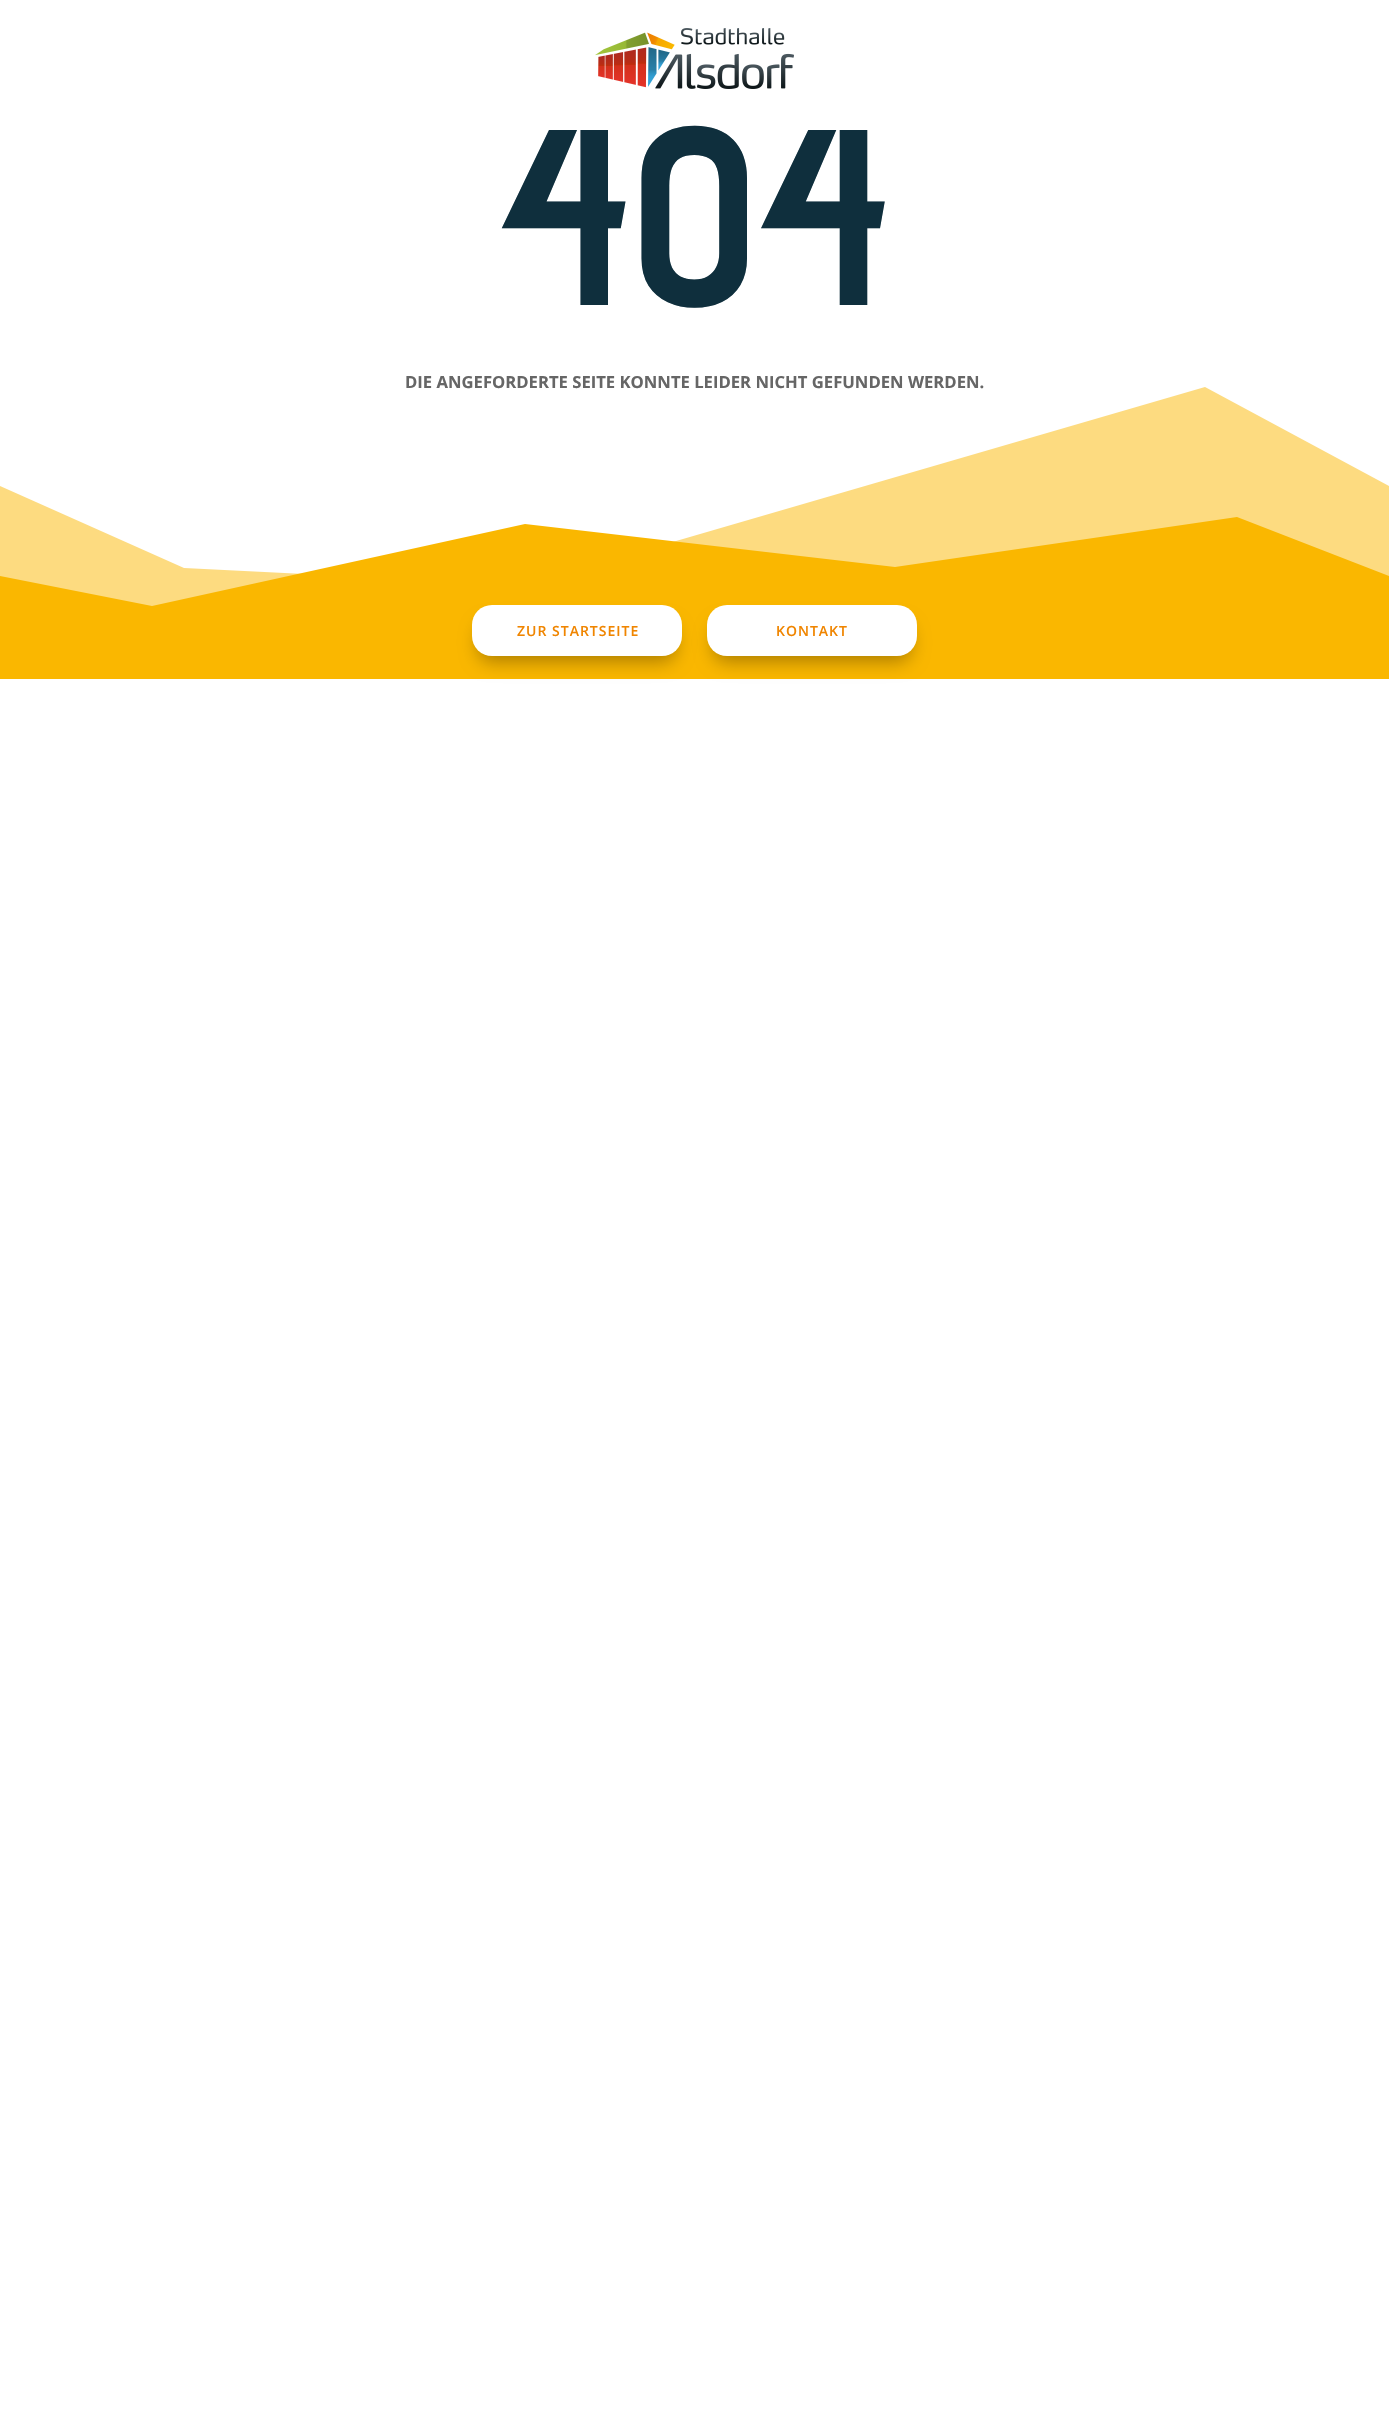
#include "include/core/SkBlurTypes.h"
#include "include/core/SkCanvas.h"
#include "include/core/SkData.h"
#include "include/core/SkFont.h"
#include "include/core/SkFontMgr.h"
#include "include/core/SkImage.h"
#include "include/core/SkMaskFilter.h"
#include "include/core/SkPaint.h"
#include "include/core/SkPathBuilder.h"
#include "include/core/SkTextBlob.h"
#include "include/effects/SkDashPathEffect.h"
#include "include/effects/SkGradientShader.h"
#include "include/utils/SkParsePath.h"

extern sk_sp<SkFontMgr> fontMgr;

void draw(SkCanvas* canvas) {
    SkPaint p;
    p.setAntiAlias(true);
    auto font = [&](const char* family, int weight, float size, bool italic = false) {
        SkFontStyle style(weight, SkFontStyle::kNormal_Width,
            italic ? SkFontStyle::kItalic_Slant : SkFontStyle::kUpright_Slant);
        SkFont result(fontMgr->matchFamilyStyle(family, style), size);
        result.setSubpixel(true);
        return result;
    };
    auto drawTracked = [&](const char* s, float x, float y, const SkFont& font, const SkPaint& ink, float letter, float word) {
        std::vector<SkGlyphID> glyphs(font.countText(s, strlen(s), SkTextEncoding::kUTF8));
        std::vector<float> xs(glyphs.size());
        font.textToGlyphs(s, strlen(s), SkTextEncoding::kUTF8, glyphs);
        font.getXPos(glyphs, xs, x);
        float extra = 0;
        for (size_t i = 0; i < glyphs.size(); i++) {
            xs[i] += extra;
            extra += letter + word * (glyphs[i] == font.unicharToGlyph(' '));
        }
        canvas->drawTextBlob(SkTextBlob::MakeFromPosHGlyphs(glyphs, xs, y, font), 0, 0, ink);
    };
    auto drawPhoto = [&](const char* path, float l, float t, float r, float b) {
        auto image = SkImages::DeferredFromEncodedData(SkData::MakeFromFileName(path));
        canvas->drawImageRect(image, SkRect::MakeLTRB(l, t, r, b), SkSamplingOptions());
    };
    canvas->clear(0xFFFFFFFF);
    drawPhoto("media/1.png", 595, 28, 794, 89);
    auto font1 = font("Advent Pro", 700, 250);
    p.setColor(0xFF0F2F3D);
    canvas->drawString("404", 497, 305, font1, p);
    p.setColor(0xFFFDDB80);
    canvas->drawPath(SkPathBuilder().moveTo(1389, 486).lineTo(1205, 387).lineTo(525, 585).lineTo(184, 568).lineTo(0, 486).lineTo(0, 679).lineTo(1389, 679).close().detach(), p);
    auto font2 = font("Open Sans", 700, 16.65f);
    p.setColor(0xFF666666);
    canvas->drawString("DIE ANGEFORDERTE SEITE KONNTE LEIDER NICHT GEFUNDEN WERDEN.", 405, 388, font2, p);
    p.setColor(0xFFFAB700);
    canvas->drawPath(SkPathBuilder().moveTo(1389, 576).lineTo(1237, 517).lineTo(895, 567).lineTo(525, 524).lineTo(152, 606).lineTo(0, 576).lineTo(0, 679).lineTo(1389, 679).close().detach(), p);
    p.setColor(0x4D000000);
    p.setMaskFilter(SkMaskFilter::MakeBlur(kNormal_SkBlurStyle, 9));
    canvas->drawRoundRect(SkRect::MakeLTRB(478, 623, 676, 662), 14, 14, p);
    p.setMaskFilter(nullptr);
    p.setColor(0xFFFFFFFF);
    canvas->drawRoundRect(SkRect::MakeLTRB(472, 605, 682, 656), 20, 20, p);
    auto font3 = font("Open Sans", 600, 14);
    p.setColor(0xFFF08500);
    drawTracked("ZUR STARTSEITE", 517, 636, font3, p, 1, 0);
    p.setColor(0x4D000000);
    p.setMaskFilter(SkMaskFilter::MakeBlur(kNormal_SkBlurStyle, 9));
    canvas->drawRoundRect(SkRect::MakeLTRB(713, 623, 911, 662), 14, 14, p);
    p.setMaskFilter(nullptr);
    p.setColor(0xFFFFFFFF);
    canvas->drawRoundRect(SkRect::MakeLTRB(707, 605, 917, 656), 20, 20, p);
    p.setColor(0xFFF08500);
    drawTracked("KONTAKT", 776, 636, font3, p, 1, 0);
}
